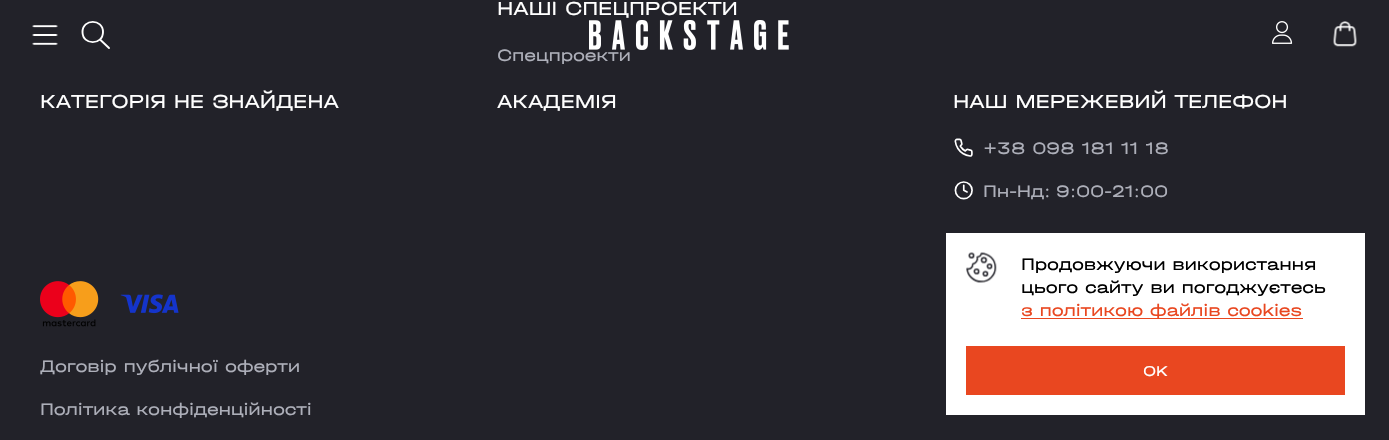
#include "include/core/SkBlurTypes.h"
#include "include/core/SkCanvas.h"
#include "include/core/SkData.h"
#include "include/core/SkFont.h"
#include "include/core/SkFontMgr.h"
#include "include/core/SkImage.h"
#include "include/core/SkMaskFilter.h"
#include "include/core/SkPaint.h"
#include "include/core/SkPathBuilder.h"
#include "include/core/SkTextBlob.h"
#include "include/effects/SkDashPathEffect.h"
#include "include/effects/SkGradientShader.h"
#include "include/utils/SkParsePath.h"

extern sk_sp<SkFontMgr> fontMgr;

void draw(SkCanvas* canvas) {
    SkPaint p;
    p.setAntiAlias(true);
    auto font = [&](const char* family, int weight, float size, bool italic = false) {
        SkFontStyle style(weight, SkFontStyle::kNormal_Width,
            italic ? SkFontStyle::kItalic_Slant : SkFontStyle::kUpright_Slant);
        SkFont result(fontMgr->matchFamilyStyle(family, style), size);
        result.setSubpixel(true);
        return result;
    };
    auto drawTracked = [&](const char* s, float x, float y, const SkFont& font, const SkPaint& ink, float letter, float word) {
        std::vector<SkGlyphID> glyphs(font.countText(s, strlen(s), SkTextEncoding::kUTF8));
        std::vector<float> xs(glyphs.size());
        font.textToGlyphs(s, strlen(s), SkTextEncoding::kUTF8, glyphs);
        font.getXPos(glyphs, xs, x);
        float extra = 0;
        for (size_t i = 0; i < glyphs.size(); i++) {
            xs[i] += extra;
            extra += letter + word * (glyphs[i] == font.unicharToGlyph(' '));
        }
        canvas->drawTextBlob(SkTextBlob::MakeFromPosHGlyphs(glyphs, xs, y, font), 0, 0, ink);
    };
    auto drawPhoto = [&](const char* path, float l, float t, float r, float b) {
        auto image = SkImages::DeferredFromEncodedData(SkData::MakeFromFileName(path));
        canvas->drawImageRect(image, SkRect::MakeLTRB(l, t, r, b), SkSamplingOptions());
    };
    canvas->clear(0xFF222229);
    auto font1 = font("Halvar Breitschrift", 400, 20);
    p.setColor(0xFFFFFFFF);
    drawTracked("НАШІ СПЕЦПРОЕКТИ", 497, 15, font1, p, -0.2f, 0);
    auto font2 = font("Halvar Breitschrift", 400, 17.5f);
    p.setColor(0xFFADAFB9);
    drawTracked("Cпецпроекти", 497, 61, font2, p, -0.2f, 0);
    p.setColor(0xFFFFFFFF);
    {
        const struct { const char* s; float x, y; } items[] = {
            {"КАТЕГОРІЯ НЕ ЗНАЙДЕНА", 40, 108},
            {"АКАДЕМІЯ", 497, 108},
            {"НАШ МЕРЕЖЕВИЙ ТЕЛЕФОН", 953, 108},
        };
        for (auto [s, x, y] : items) {
            drawTracked(s, x, y, font1, p, -0.2f, 0);
        }
    }
    drawPhoto("media/1.png", 954, 138, 973, 157);
    p.setColor(0xFFADAFB9);
    drawTracked("+38 098 181 11 18", 983, 154, font2, p, -0.2f, 0);
    drawPhoto("media/2.png", 954, 181, 973, 200);
    drawTracked("Пн-Нд: 9:00-21:00", 983, 197, font2, p, -0.2f, -1);
    drawPhoto("media/3.png", 40, 281, 99, 327);
    drawPhoto("media/4.png", 120, 294, 179, 314);
    drawTracked("Договір публічної оферти", 40, 372, font2, p, -0.2f, 0);
    drawTracked("Політика конфіденційності", 40, 415, font2, p, -0.2f, 0);
    drawPhoto("media/5.png", 32, 25, 58, 28);
    drawPhoto("media/6.png", 32, 34, 58, 36);
    drawPhoto("media/7.png", 32, 42, 58, 45);
    p.setStyle(SkPaint::kStroke_Style);
    p.setStrokeWidth(1.9f);
    p.setStrokeCap(SkPaint::kRound_Cap);
    p.setStrokeJoin(SkPaint::kRound_Join);
    p.setColor(0xFFFFFFFF);
    canvas->drawPath(SkPathBuilder().moveTo(109, 48).lineTo(100, 39.5f).moveTo(103, 32).cubicTo(103, 45.5f, 82.5f, 45.5f, 82.5f, 32).cubicTo(82.5f, 18.5f, 103, 18.5f, 103, 32).close().detach(), p);
    drawPhoto("media/8.png", 589, 20, 789, 50);
    drawPhoto("media/9.png", 1272, 21, 1293, 44);
    drawPhoto("media/10.png", 1333, 21, 1357, 47);
    p.setStyle(SkPaint::kFill_Style);
    canvas->drawRect(SkRect::MakeLTRB(946, 233, 1365, 415), p);
    drawPhoto("media/11.png", 966, 252, 997, 283);
    p.setColor(0xFF000000);
    drawTracked("Продовжуючи використання", 1021, 270, font2, p, -0.2f, 0);
    drawTracked("цього сайту ви погоджуєтесь", 1021, 293, font2, p, -0.2f, 0);
    p.setColor(0xFFE94720);
    canvas->drawRect(SkRect::MakeLTRB(1021, 318, 1303, 319), p);
    drawTracked("з політикою файлів cookies", 1021, 316, font2, p, -0.2f, 0);
    canvas->drawRect(SkRect::MakeLTRB(966, 346, 1345, 395), p);
    auto font3 = font("Halvar Breitschrift", 400, 15);
    p.setColor(0xFFFFFFFF);
    drawTracked("OK", 1143, 376, font3, p, -0.2f, 0);
}
